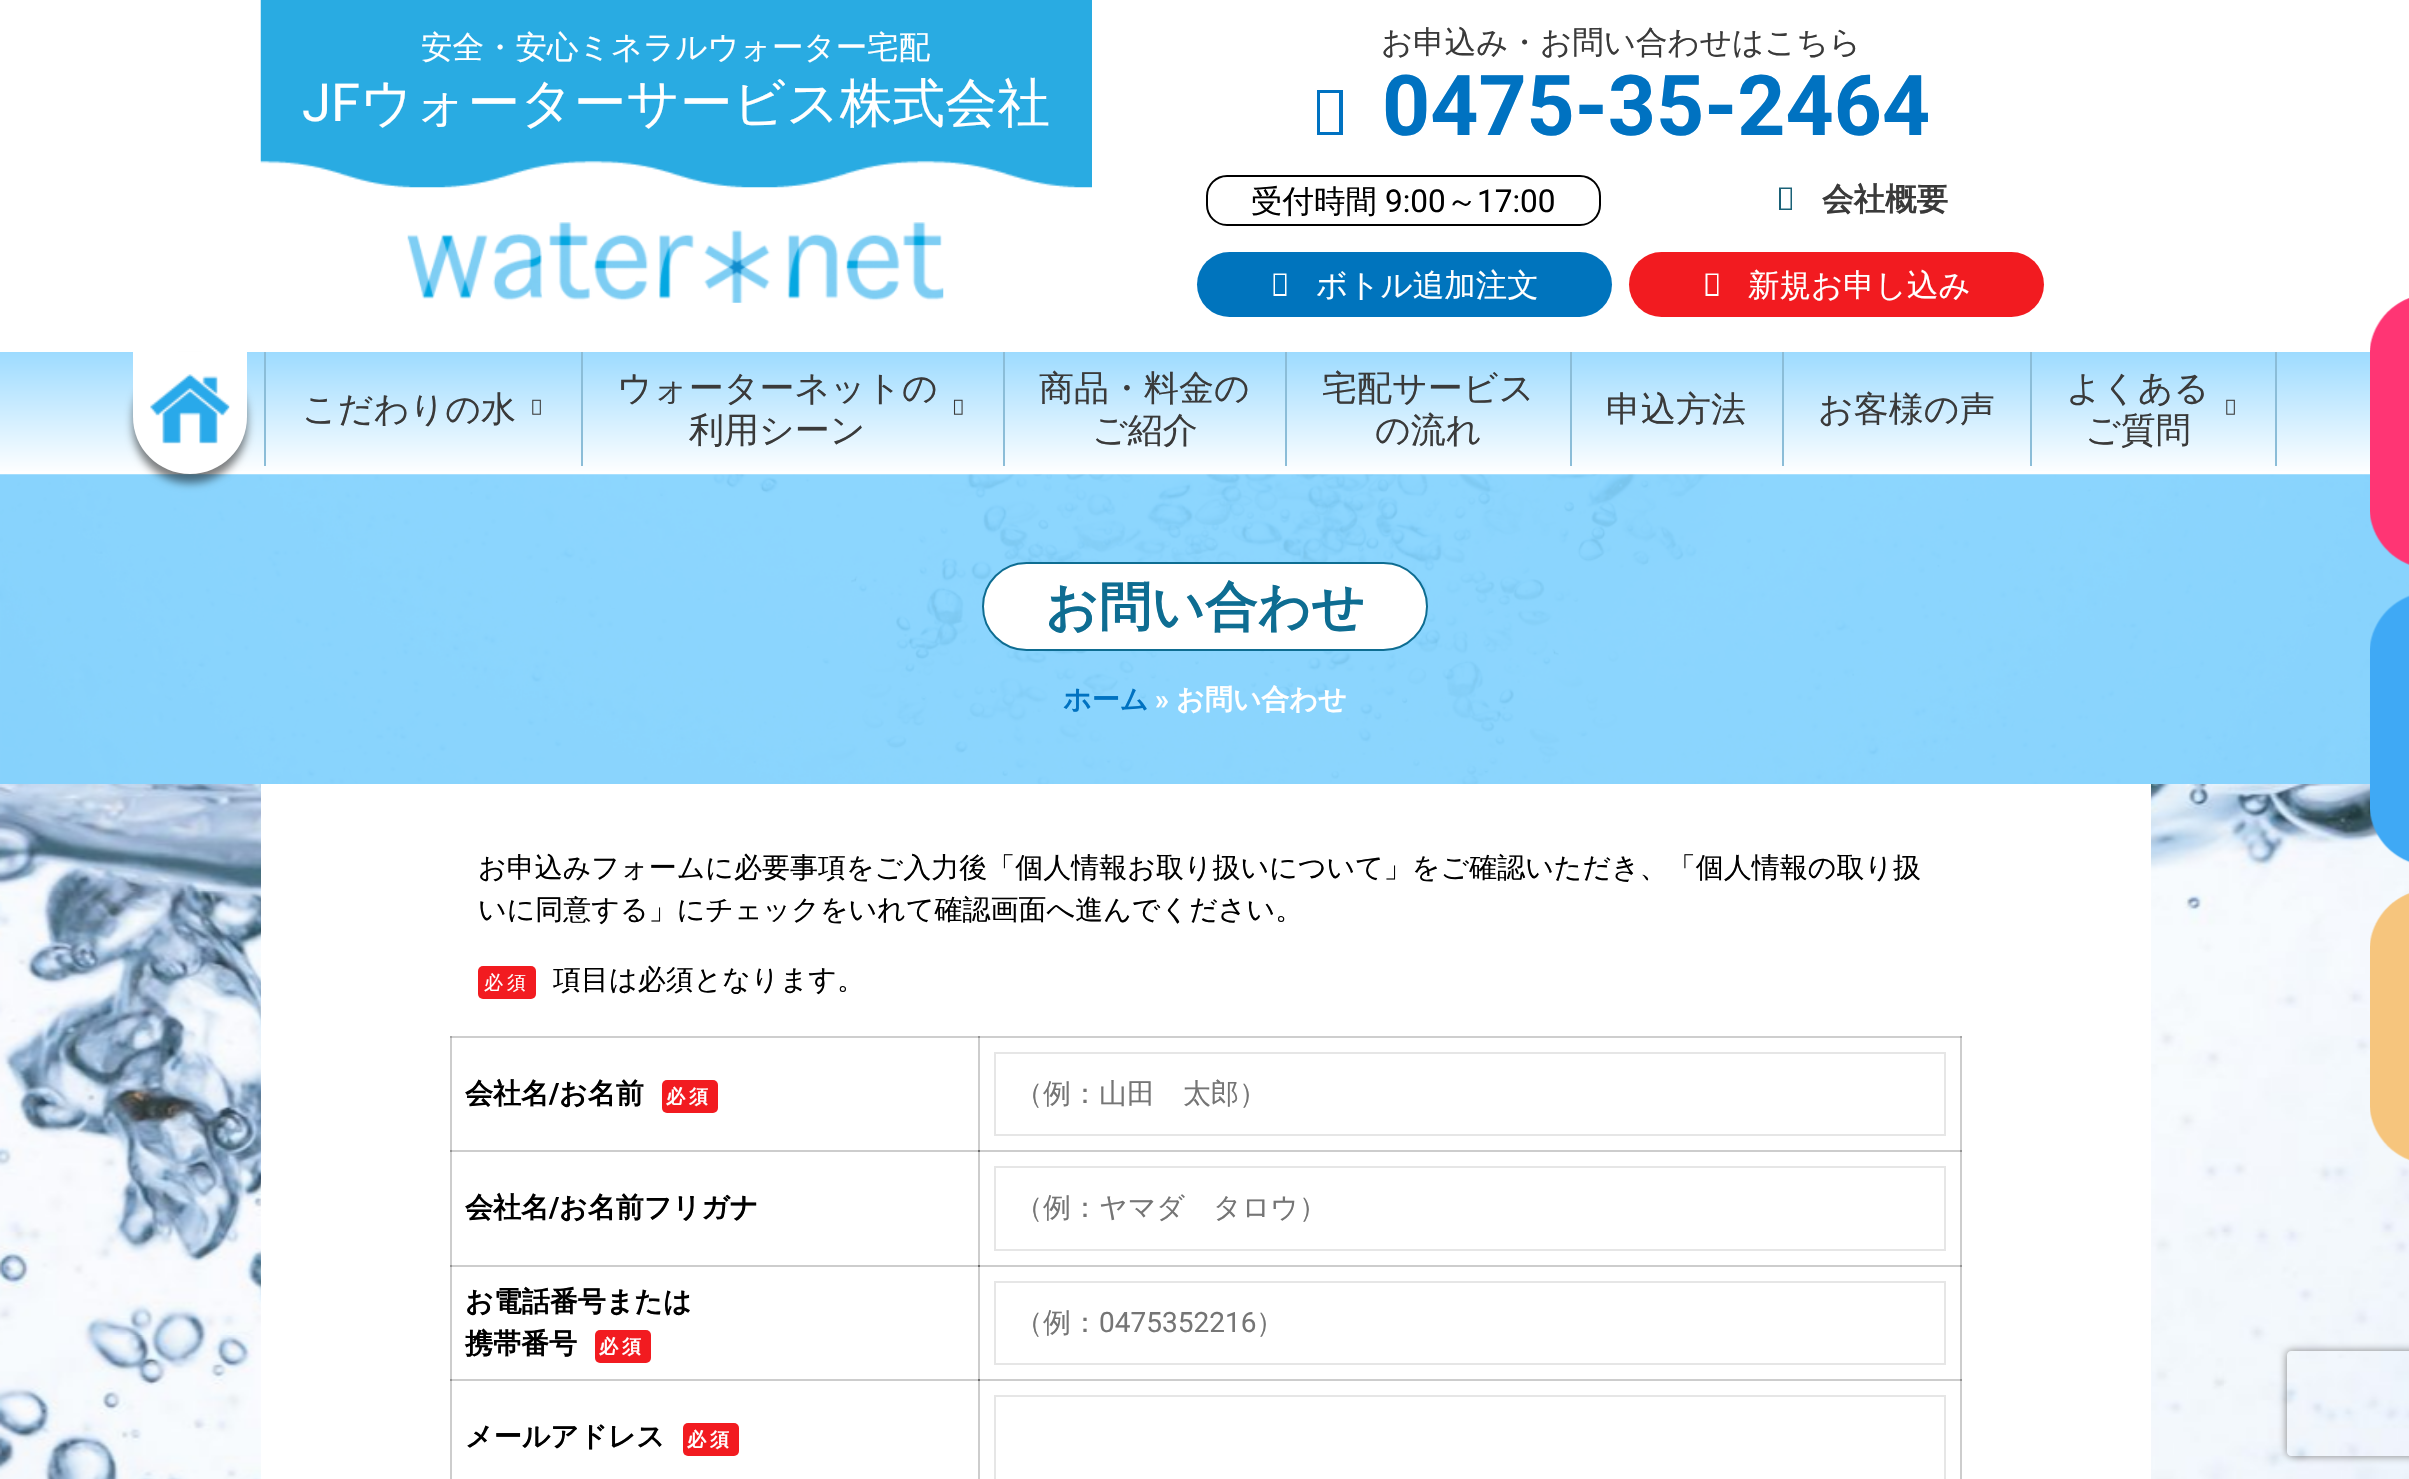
#include "include/core/SkBlurTypes.h"
#include "include/core/SkCanvas.h"
#include "include/core/SkData.h"
#include "include/core/SkFont.h"
#include "include/core/SkFontMgr.h"
#include "include/core/SkImage.h"
#include "include/core/SkMaskFilter.h"
#include "include/core/SkPaint.h"
#include "include/core/SkPathBuilder.h"
#include "include/core/SkTextBlob.h"
#include "include/effects/SkDashPathEffect.h"
#include "include/effects/SkGradientShader.h"
#include "include/utils/SkParsePath.h"

extern sk_sp<SkFontMgr> fontMgr;

void draw(SkCanvas* canvas) {
    SkPaint p;
    p.setAntiAlias(true);
    auto font = [&](const char* family, int weight, float size, bool italic = false) {
        SkFontStyle style(weight, SkFontStyle::kNormal_Width,
            italic ? SkFontStyle::kItalic_Slant : SkFontStyle::kUpright_Slant);
        SkFont result(fontMgr->matchFamilyStyle(family, style), size);
        result.setSubpixel(true);
        return result;
    };
    auto drawTracked = [&](const char* s, float x, float y, const SkFont& font, const SkPaint& ink, float letter, float word) {
        std::vector<SkGlyphID> glyphs(font.countText(s, strlen(s), SkTextEncoding::kUTF8));
        std::vector<float> xs(glyphs.size());
        font.textToGlyphs(s, strlen(s), SkTextEncoding::kUTF8, glyphs);
        font.getXPos(glyphs, xs, x);
        float extra = 0;
        for (size_t i = 0; i < glyphs.size(); i++) {
            xs[i] += extra;
            extra += letter + word * (glyphs[i] == font.unicharToGlyph(' '));
        }
        canvas->drawTextBlob(SkTextBlob::MakeFromPosHGlyphs(glyphs, xs, y, font), 0, 0, ink);
    };
    auto drawPhoto = [&](const char* path, float l, float t, float r, float b) {
        auto image = SkImages::DeferredFromEncodedData(SkData::MakeFromFileName(path));
        canvas->drawImageRect(image, SkRect::MakeLTRB(l, t, r, b), SkSamplingOptions());
    };
    canvas->clear(0xFFFFFFFF);
    drawPhoto("media/1.png", 260, 0, 1092, 188);
    auto font1 = font("WenQuanYi Zen Hei", 500, 31.5f);
    p.setColor(0xFFFFFFFF);
    canvas->drawString("安全・安心ミネラルウォーター宅配", 421, 58, font1, p);
    auto font2 = font("Roboto", 400, 52.5f);
    canvas->drawString("JF", 302, 121, font2, p);
    auto font3 = font("WenQuanYi Zen Hei", 500, 52.5f);
    canvas->drawString("ウォーターサービス株式会社", 360, 121, font3, p);
    drawPhoto("media/2.png", 407, 222, 944, 303);
    p.setColor(0xFF3A3A3A);
    canvas->drawString("お申込み・お問い合わせはこちら", 1381, 53, font1, p);
    auto font4 = font("Roboto", 700, 84);
    p.setColor(0xFF0072C1);
    canvas->drawString("0475-35-2464", 1382, 135, font4, p);
    canvas->drawPath(SkPathBuilder().moveTo(1317, 135).lineTo(1317, 90).lineTo(1343, 90).lineTo(1343, 135).close().moveTo(1320, 132).lineTo(1339, 132).lineTo(1339, 93).lineTo(1320, 93).close().detach(), p);
    p.setStyle(SkPaint::kStroke_Style);
    p.setStrokeWidth(2);
    p.setColor(0xFF000000);
    canvas->drawRoundRect(SkRect::MakeLTRB(1207, 176, 1600, 225), 20, 20, p);
    p.setStyle(SkPaint::kFill_Style);
    canvas->drawString("受付時間", 1251, 212, font1, p);
    auto font5 = font("Roboto", 400, 31.5f);
    canvas->drawString("9:00", 1385, 212, font5, p);
    canvas->drawString("～", 1446, 212, font1, p);
    canvas->drawString("17:00", 1477, 212, font5, p);
    auto font6 = font("WenQuanYi Zen Hei", 700, 31.5f);
    p.setColor(0xFF3A3A3A);
    canvas->drawString("会社概要", 1822, 210, font6, p);
    p.setColor(0xFF1A6177);
    canvas->drawPath(SkPathBuilder().moveTo(1779, 210).lineTo(1779, 187.5f).lineTo(1792, 187.5f).lineTo(1792, 210).close().moveTo(1781, 208.5f).lineTo(1790.5f, 208.5f).lineTo(1790.5f, 189).lineTo(1781, 189).close().detach(), p);
    p.setColor(0xFF0074BD);
    canvas->drawRoundRect(SkRect::MakeLTRB(1197, 252, 1612, 317), 32.5f, 32.5f, p);
    p.setColor(0xFFFFFFFF);
    canvas->drawPath(SkPathBuilder().moveTo(1273.5f, 296).lineTo(1273.5f, 273.5f).lineTo(1286.5f, 273.5f).lineTo(1286.5f, 296).close().moveTo(1275, 294).lineTo(1285, 294).lineTo(1285, 275).lineTo(1275, 275).close().detach(), p);
    canvas->drawString("ボトル追加注文", 1316, 296, font1, p);
    p.setColor(0xFFF21B20);
    canvas->drawRoundRect(SkRect::MakeLTRB(1629, 252, 2044, 317), 32.5f, 32.5f, p);
    p.setColor(0xFFFFFFFF);
    canvas->drawPath(SkPathBuilder().moveTo(1705.5f, 296).lineTo(1705.5f, 273.5f).lineTo(1718.5f, 273.5f).lineTo(1718.5f, 296).close().moveTo(1707.5f, 294).lineTo(1717, 294).lineTo(1717, 275).lineTo(1707.5f, 275).close().detach(), p);
    canvas->drawString("新規お申し込み", 1748, 296, font1, p);
    {
        const SkColor colors[] = {0xFF9DDBFF, 0xFFFFFFFF};
        const float stops[] = {0, 1};
        const SkPoint ends[] = {{1205, 352}, {1205, 474}};
        p.setShader(SkGradientShader::MakeLinear(ends, colors, stops, 2, SkTileMode::kClamp));
        p.setAlpha(255);
    }
    canvas->drawRect(SkRect::MakeLTRB(0, 352, 2370, 471), p);
    drawPhoto("media/6.png", 0, 474, 2409, 784);
    p.setShader(nullptr);
    p.setColor(0x80000000);
    p.setMaskFilter(SkMaskFilter::MakeBlur(kNormal_SkBlurStyle, 4.5f));
    canvas->drawRoundRect(SkRect::MakeLTRB(133, 361, 247, 483), 57, 57, p);
    p.setMaskFilter(nullptr);
    p.setColor(0xFFFFFFFF);
    canvas->drawPath(SkPathBuilder().moveTo(133, 352).lineTo(247, 352).lineTo(247, 417).cubicTo(247, 448.5f, 221.5f, 474, 190, 474).cubicTo(158.5f, 474, 133, 448.5f, 133, 417).close().detach(), p);
    drawPhoto("media/3.png", 150, 374, 230, 444);
    p.setColor(0xFF8BBDD8);
    canvas->drawRect(SkRect::MakeLTRB(581, 352, 583, 466), p);
    canvas->drawRect(SkRect::MakeLTRB(264, 352, 266, 466), p);
    auto font7 = font("WenQuanYi Zen Hei", 500, 35);
    p.setColor(0xFF3A3A3A);
    canvas->drawString("こだわりの水", 302, 421, font7, p);
    drawPhoto("media/4.png", 532, 399, 541, 415);
    p.setColor(0xFF8BBDD8);
    canvas->drawRect(SkRect::MakeLTRB(1003, 352, 1005, 466), p);
    p.setColor(0xFF3A3A3A);
    canvas->drawString("ウォーターネットの", 617, 400, font7, p);
    drawPhoto("media/5.png", 953, 399, 963, 415);
    canvas->drawString("利用シーン", 689, 442, font7, p);
    p.setColor(0xFF8BBDD8);
    canvas->drawRect(SkRect::MakeLTRB(1285, 352, 1287, 466), p);
    p.setColor(0xFF3A3A3A);
    canvas->drawString("商品・料金の", 1039, 400, font7, p);
    canvas->drawString("ご紹介", 1092, 442, font7, p);
    p.setColor(0xFF8BBDD8);
    canvas->drawRect(SkRect::MakeLTRB(1570, 352, 1572, 466), p);
    p.setColor(0xFF3A3A3A);
    canvas->drawString("宅配サービス", 1322, 400, font7, p);
    canvas->drawString("の流れ", 1375, 442, font7, p);
    p.setColor(0xFF8BBDD8);
    canvas->drawRect(SkRect::MakeLTRB(1782, 352, 1784, 466), p);
    p.setColor(0xFF3A3A3A);
    canvas->drawString("申込方法", 1606, 421, font7, p);
    p.setColor(0xFF8BBDD8);
    canvas->drawRect(SkRect::MakeLTRB(2030, 352, 2032, 466), p);
    p.setColor(0xFF3A3A3A);
    canvas->drawString("お客様の声", 1818, 421, font7, p);
    p.setColor(0xFF8BBDD8);
    canvas->drawRect(SkRect::MakeLTRB(2275, 352, 2277, 466), p);
    p.setColor(0xFF3A3A3A);
    canvas->drawString("よくある", 2066, 400, font7, p);
    drawPhoto("media/4.png", 2226, 399, 2235, 415);
    canvas->drawString("ご質問", 2085, 442, font7, p);
    p.setColor(0xFFFFFFFF);
    canvas->drawRoundRect(SkRect::MakeLTRB(983, 563, 1427, 650), 43.5f, 43.5f, p);
    p.setStyle(SkPaint::kStroke_Style);
    p.setColor(0xFF0E6D92);
    canvas->drawRoundRect(SkRect::MakeLTRB(983, 563, 1427, 650), 43.5f, 43.5f, p);
    auto font8 = font("WenQuanYi Zen Hei", 700, 52.5f);
    p.setStyle(SkPaint::kFill_Style);
    canvas->drawString("お問い合わせ", 1045, 625, font8, p);
    auto font9 = font("WenQuanYi Zen Hei", 700, 28);
    p.setColor(0xFF0072C1);
    canvas->drawString("ホーム", 1063, 709, font9, p);
    auto font10 = font("Roboto", 700, 28);
    p.setColor(0xFFFFFFFF);
    canvas->drawString("»", 1155, 709, font10, p);
    canvas->drawString("お問い合わせ", 1176, 709, font9, p);
    drawPhoto("media/7.png", 0, 784, 2409, 1479);
    canvas->drawRect(SkRect::MakeLTRB(261, 784, 2151, 1479), p);
    auto font11 = font("WenQuanYi Zen Hei", 500, 28);
    p.setColor(0xFF000000);
    canvas->drawString("お申込みフォームに必要事項をご入力後「個人情報お取り扱いについて」をご確認いただき、「個人情報の取り扱", 478, 877, font11, p);
    canvas->drawString("いに同意する」にチェックをいれて確認画面へ進んでください。", 478, 919, font11, p);
    p.setColor(0xFFF21B20);
    canvas->drawRoundRect(SkRect::MakeLTRB(478, 966, 536, 999), 5, 5, p);
    auto font12 = font("WenQuanYi Zen Hei", 500, 19);
    p.setColor(0xFFFFFFFF);
    drawTracked("必須", 484, 989, font12, p, 4, 0);
    p.setColor(0xFF000000);
    canvas->drawString("項目は必須となります。", 553, 989, font11, p);
    {
        const struct { float l, t, r, b; SkColor color; } items[] = {
            {450, 1036, 1962, 1038, 0xFFE6E6E6},
            {1960, 1036, 1962, 1479, 0x1A000000},
            {450, 1036, 452, 1479, 0x1A000000},
            {978, 1036, 1962, 1038, 0x1A000000},
            {978, 1150, 1962, 1152, 0x1A000000},
            {978, 1265, 1962, 1267, 0x1A000000},
            {978, 1379, 1962, 1381, 0x1A000000},
            {1960, 1379, 1962, 1479, 0x1A000000},
            {1960, 1265, 1962, 1381, 0x1A000000},
            {1960, 1150, 1962, 1267, 0x1A000000},
            {1960, 1036, 1962, 1152, 0x1A000000},
            {978, 1379, 980, 1479, 0x1A000000},
            {450, 1379, 980, 1381, 0x1A000000},
            {978, 1379, 980, 1479, 0x1A000000},
            {978, 1379, 1962, 1381, 0x1A000000},
            {978, 1265, 980, 1381, 0x1A000000},
            {450, 1265, 980, 1267, 0x1A000000},
            {978, 1265, 980, 1381, 0x1A000000},
            {978, 1265, 1962, 1267, 0x1A000000},
            {978, 1150, 980, 1267, 0x1A000000},
            {450, 1150, 980, 1152, 0x1A000000},
            {978, 1150, 980, 1267, 0x1A000000},
            {978, 1150, 1962, 1152, 0x1A000000},
            {978, 1036, 980, 1152, 0x1A000000},
            {450, 1036, 980, 1038, 0x1A000000},
            {978, 1036, 980, 1152, 0x1A000000},
            {450, 1379, 452, 1479, 0x1A000000},
            {450, 1379, 980, 1381, 0x1A000000},
            {450, 1265, 452, 1381, 0x1A000000},
            {450, 1265, 980, 1267, 0x1A000000},
            {450, 1150, 452, 1267, 0x1A000000},
            {450, 1150, 980, 1152, 0x1A000000},
            {450, 1036, 452, 1152, 0x1A000000},
        };
        for (auto [l, t, r, b, color] : items) {
            p.setColor(color);
            canvas->drawRect(SkRect::MakeLTRB(l, t, r, b), p);
        }
    }
    p.setColor(0xFF000000);
    canvas->drawString("会社名", 465, 1103, font9, p);
    canvas->drawString("/", 549, 1103, font10, p);
    canvas->drawString("お名前", 559, 1103, font9, p);
    p.setColor(0xFFF21B20);
    canvas->drawRoundRect(SkRect::MakeLTRB(662, 1080, 718, 1113), 5, 5, p);
    auto font13 = font("WenQuanYi Zen Hei", 700, 19);
    p.setColor(0xFFFFFFFF);
    drawTracked("必須", 666, 1103, font13, p, 4, 0);
    p.setStyle(SkPaint::kStroke_Style);
    p.setColor(0xFFE6E6E6);
    canvas->drawRect(SkRect::MakeLTRB(995, 1053, 1945, 1135), p);
    p.setStyle(SkPaint::kFill_Style);
    p.setColor(0xFF757575);
    canvas->drawString("（例：山田　太郎）", 1015, 1103, font11, p);
    p.setColor(0xFF000000);
    canvas->drawString("会社名", 465, 1217, font9, p);
    canvas->drawString("/", 549, 1217, font10, p);
    canvas->drawString("お名前フリガナ", 559, 1217, font9, p);
    p.setStyle(SkPaint::kStroke_Style);
    p.setColor(0xFFE6E6E6);
    canvas->drawRect(SkRect::MakeLTRB(995, 1167, 1945, 1250), p);
    p.setStyle(SkPaint::kFill_Style);
    p.setColor(0xFF757575);
    canvas->drawString("（例：ヤマダ　タロウ）", 1015, 1217, font11, p);
    p.setColor(0xFF000000);
    canvas->drawString("お電話番号または", 465, 1311, font9, p);
    canvas->drawString("携帯番号", 465, 1353, font9, p);
    p.setColor(0xFFF21B20);
    canvas->drawRoundRect(SkRect::MakeLTRB(595, 1330, 651, 1363), 5, 5, p);
    p.setColor(0xFFFFFFFF);
    drawTracked("必須", 599, 1353, font13, p, 4, 0);
    p.setStyle(SkPaint::kStroke_Style);
    p.setColor(0xFFE6E6E6);
    canvas->drawRect(SkRect::MakeLTRB(995, 1282, 1945, 1364), p);
    p.setStyle(SkPaint::kFill_Style);
    p.setColor(0xFF757575);
    canvas->drawString("（例：", 1015, 1332, font11, p);
    auto font14 = font("Roboto", 400, 28);
    canvas->drawString("0475352216", 1099, 1332, font14, p);
    canvas->drawString("）", 1256, 1332, font11, p);
    p.setColor(0xFF000000);
    canvas->drawString("メールアドレス", 465, 1446, font9, p);
    p.setColor(0xFFF21B20);
    canvas->drawRoundRect(SkRect::MakeLTRB(683, 1423, 739, 1456), 5, 5, p);
    p.setColor(0xFFFFFFFF);
    drawTracked("必須", 687, 1446, font13, p, 4, 0);
    p.setStyle(SkPaint::kStroke_Style);
    p.setColor(0xFFE6E6E6);
    canvas->drawRect(SkRect::MakeLTRB(995, 1396, 1945, 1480), p);
    drawPhoto("media/8.png", 2370, 298, 2409, 565);
    drawPhoto("media/9.png", 2370, 595, 2409, 863);
    drawPhoto("media/10.png", 2370, 893, 2409, 1161);
    canvas->save();
    canvas->clipPath(SkPathBuilder(SkPathFillType::kEvenOdd).moveTo(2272, 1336).lineTo(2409, 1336).lineTo(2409, 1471).lineTo(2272, 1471).close().moveTo(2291, 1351).lineTo(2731, 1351).cubicTo(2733, 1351, 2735, 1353, 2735, 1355).lineTo(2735, 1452).cubicTo(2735, 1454, 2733, 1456, 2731, 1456).lineTo(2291, 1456).cubicTo(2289, 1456, 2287, 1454, 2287, 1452).lineTo(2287, 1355).cubicTo(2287, 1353, 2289, 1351, 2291, 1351).close().detach(), true);
    p.setStyle(SkPaint::kFill_Style);
    p.setColor(0xFF808080);
    p.setMaskFilter(SkMaskFilter::MakeBlur(kNormal_SkBlurStyle, 4.5f));
    canvas->drawRoundRect(SkRect::MakeLTRB(2287, 1351, 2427, 1456), 4, 4, p);
    p.setMaskFilter(nullptr);
    canvas->restore();
}
